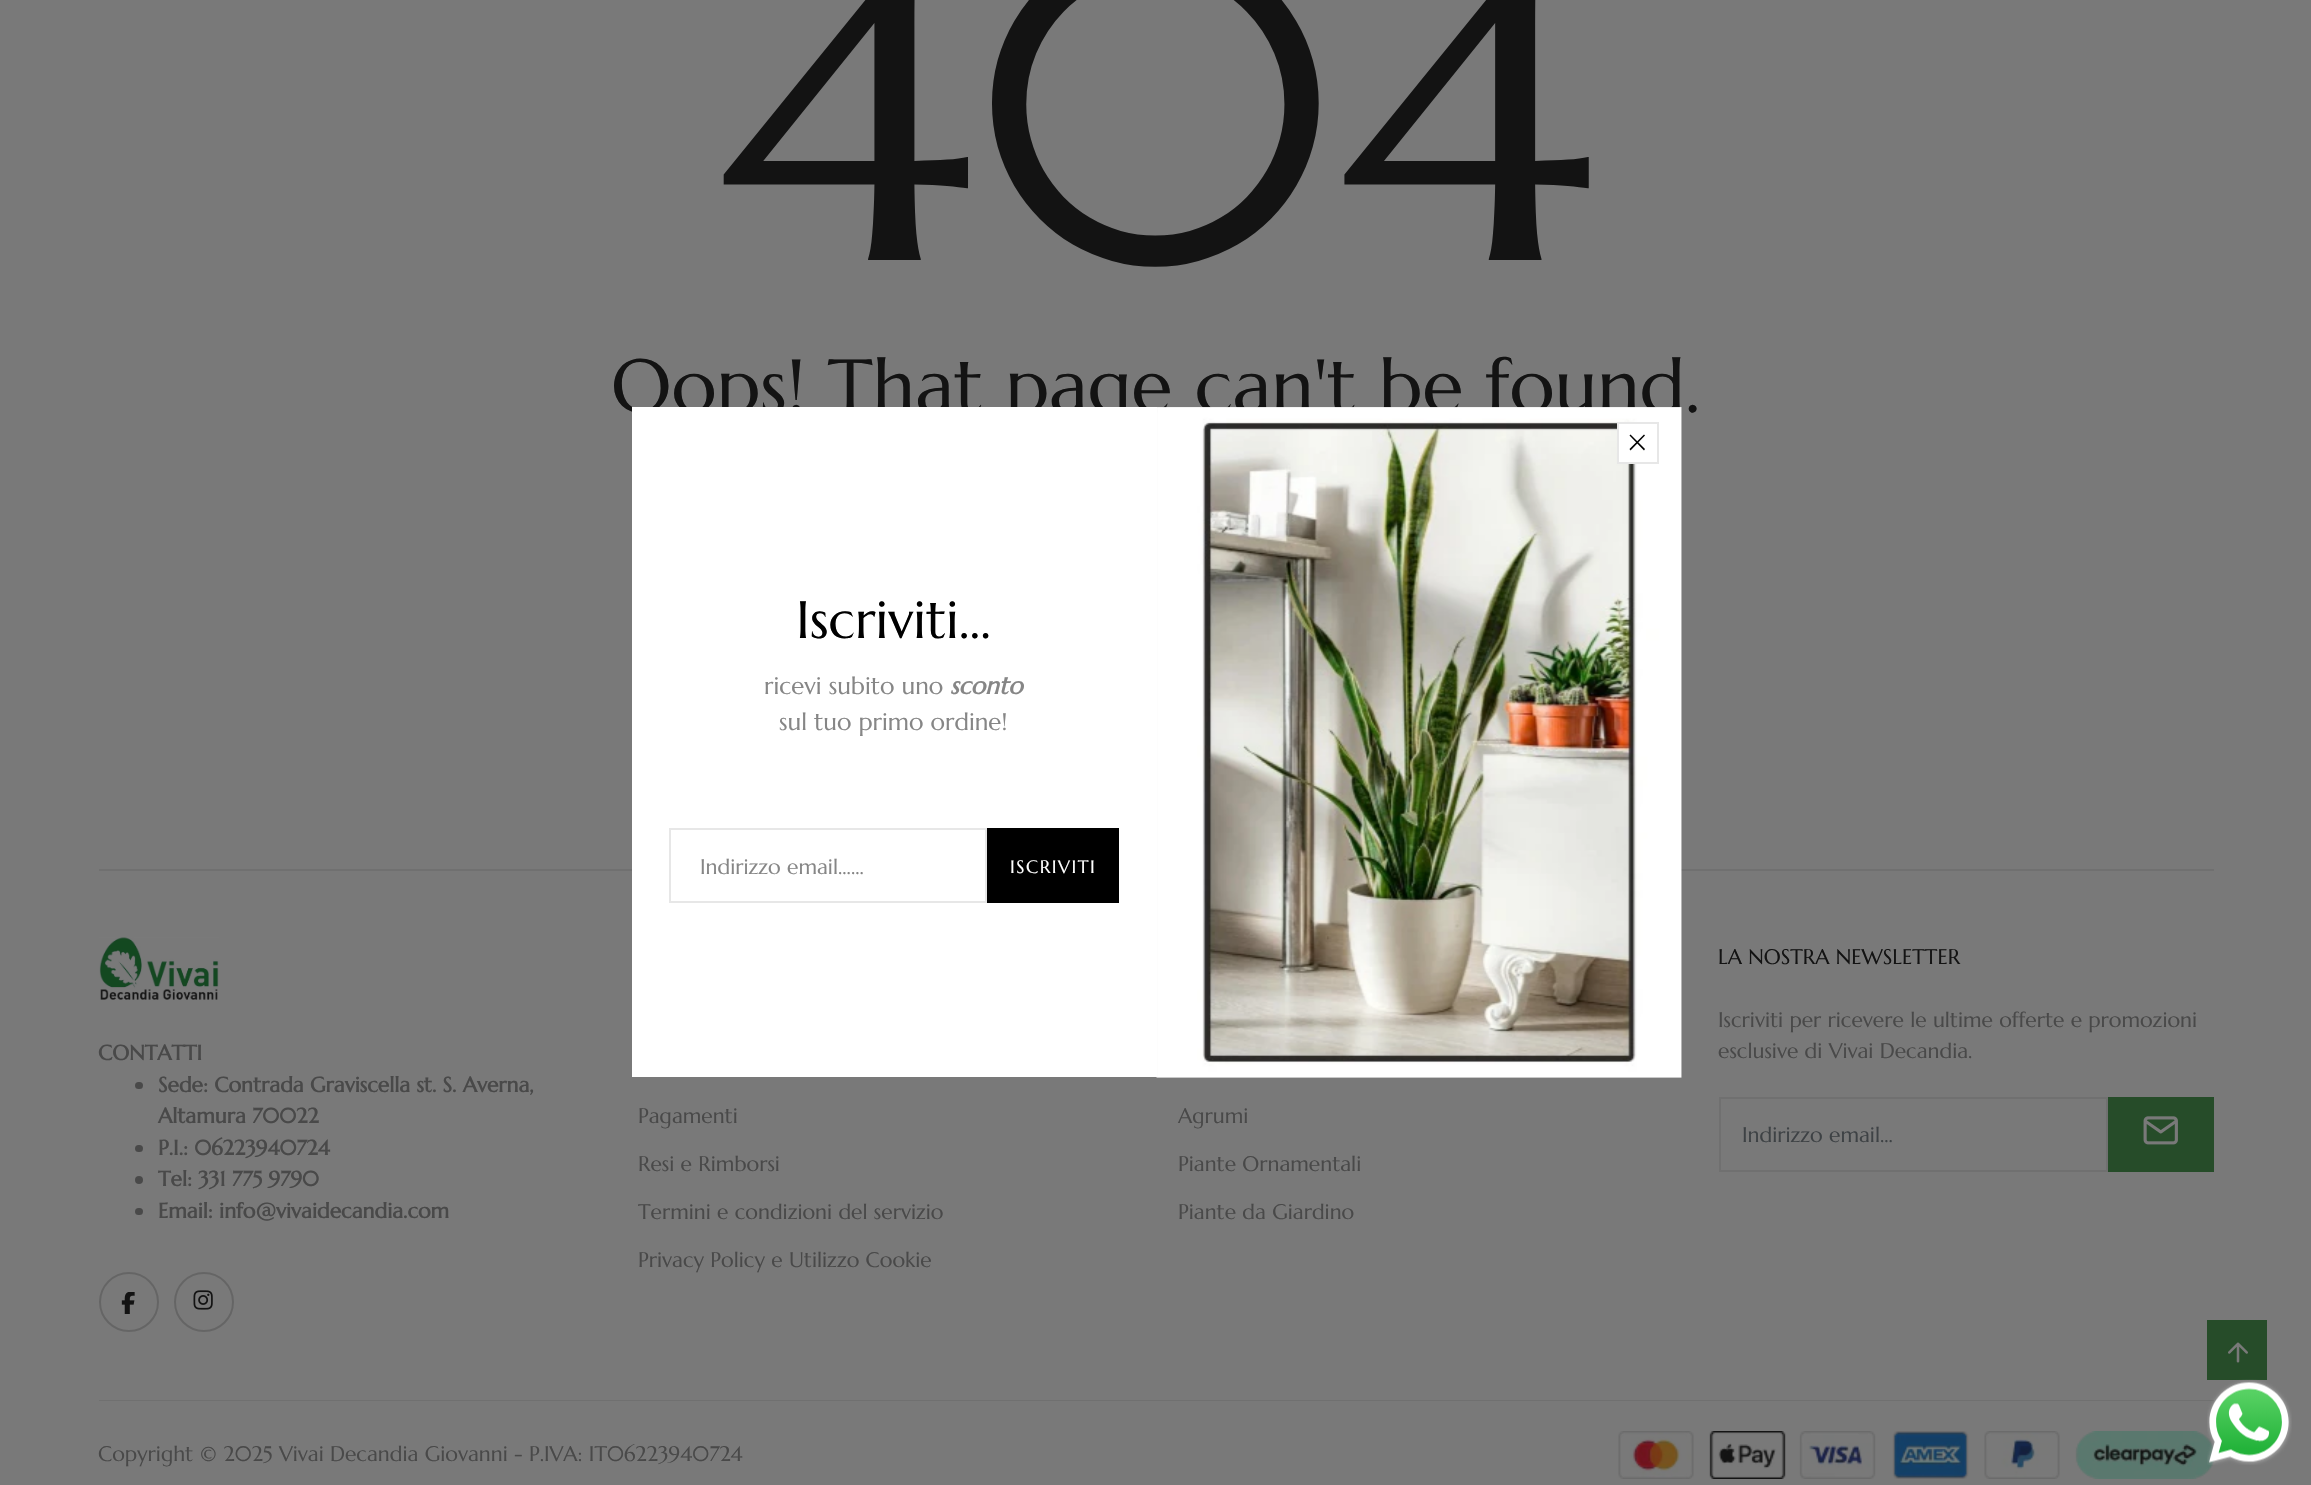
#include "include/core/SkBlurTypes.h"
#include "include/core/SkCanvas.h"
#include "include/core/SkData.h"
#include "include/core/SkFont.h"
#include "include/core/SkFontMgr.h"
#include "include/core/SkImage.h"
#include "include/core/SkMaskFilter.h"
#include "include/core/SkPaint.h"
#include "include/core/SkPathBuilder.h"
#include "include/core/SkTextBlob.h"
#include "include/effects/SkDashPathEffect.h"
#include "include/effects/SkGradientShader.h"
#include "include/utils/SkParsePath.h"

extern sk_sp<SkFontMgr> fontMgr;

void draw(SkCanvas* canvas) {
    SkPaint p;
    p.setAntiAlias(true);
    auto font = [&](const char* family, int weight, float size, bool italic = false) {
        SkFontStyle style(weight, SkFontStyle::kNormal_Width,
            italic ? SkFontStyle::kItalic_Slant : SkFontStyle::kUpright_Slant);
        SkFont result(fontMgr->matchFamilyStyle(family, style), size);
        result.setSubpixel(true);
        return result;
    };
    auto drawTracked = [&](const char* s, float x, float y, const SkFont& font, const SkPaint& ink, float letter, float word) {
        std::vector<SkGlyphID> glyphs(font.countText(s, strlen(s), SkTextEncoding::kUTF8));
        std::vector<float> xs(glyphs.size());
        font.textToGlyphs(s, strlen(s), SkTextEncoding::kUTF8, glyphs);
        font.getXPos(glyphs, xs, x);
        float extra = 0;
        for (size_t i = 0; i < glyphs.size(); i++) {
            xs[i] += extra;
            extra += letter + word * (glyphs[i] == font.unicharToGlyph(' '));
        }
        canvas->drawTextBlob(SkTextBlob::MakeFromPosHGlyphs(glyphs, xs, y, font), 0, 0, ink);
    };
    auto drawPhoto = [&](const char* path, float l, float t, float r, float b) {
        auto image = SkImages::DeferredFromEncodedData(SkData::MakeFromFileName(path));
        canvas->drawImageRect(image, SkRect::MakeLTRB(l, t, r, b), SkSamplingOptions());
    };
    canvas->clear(0xFF797979);
    auto font1 = font("Marcellus", 400, 450);
    p.setColor(0xFF131313);
    canvas->drawString("404", 716, 260, font1, p);
    auto font2 = font("Marcellus", 400, 75);
    canvas->drawString("Oops! That page can't be found.", 611, 412, font2, p);
    p.setColor(0xFF707070);
    canvas->drawRect(SkRect::MakeLTRB(99, 869, 2214, 871), p);
    p.setColor(0xFFFFFFFF);
    canvas->drawRect(SkRect::MakeLTRB(632, 407, 1157, 1077), p);
    drawPhoto("media/1.png", 1156, 407, 1682, 1078);
    canvas->drawRect(SkRect::MakeLTRB(1619, 424, 1640, 462), p);
    p.setStyle(SkPaint::kStroke_Style);
    p.setStrokeWidth(2);
    p.setColor(0xFFE7E7E7);
    canvas->drawRect(SkRect::MakeLTRB(1618, 423, 1658, 463), p);
    p.setStyle(SkPaint::kFill_Style);
    p.setColor(0xFF000000);
    canvas->drawPath(SkPathBuilder().moveTo(1629.5f, 449).lineTo(1644, 434.5f).lineTo(1645, 435.5f).lineTo(1630.5f, 450.5f).close().detach(), p);
    canvas->drawPath(SkPathBuilder().moveTo(1630.5f, 434.5f).lineTo(1645, 449).lineTo(1644, 450.5f).lineTo(1629.5f, 435.5f).close().detach(), p);
    auto font3 = font("Marcellus", 400, 52.5f);
    canvas->drawString("Iscriviti...", 796, 638, font3, p);
    auto font4 = font("Marcellus", 400, 24);
    p.setColor(0xFF868686);
    canvas->drawString("ricevi subito uno", 764, 694, font4, p);
    auto font5 = font("Marcellus", 700, 24, true);
    canvas->drawString("sconto", 950, 694, font5, p);
    canvas->drawString("sul tuo primo ordine!", 779, 730, font4, p);
    p.setStyle(SkPaint::kStroke_Style);
    p.setColor(0xFFE7E7E7);
    canvas->drawRect(SkRect::MakeLTRB(670, 829, 986, 902), p);
    auto font6 = font("Marcellus", 400, 21);
    p.setStyle(SkPaint::kFill_Style);
    p.setColor(0xFF868686);
    canvas->drawString("Indirizzo email......", 700, 874, font6, p);
    p.setColor(0xFF000000);
    canvas->drawRect(SkRect::MakeLTRB(987, 828, 1119, 903), p);
    auto font7 = font("Marcellus", 400, 18);
    p.setColor(0xFFFFFFFF);
    drawTracked("ISCRIVITI", 1010, 873, font7, p, 1.5f, 0);
    p.setColor(0xFF707070);
    canvas->drawRect(SkRect::MakeLTRB(99, 1400, 2214, 1401), p);
    drawPhoto("media/2.png", 99, 937, 219, 1000);
    auto font8 = font("Marcellus", 700, 21);
    p.setColor(0xFF494949);
    canvas->drawString("CONTATTI", 98, 1060, font8, p);
    canvas->drawRoundRect(SkRect::MakeLTRB(135, 1082, 143, 1089), 3.5f, 3.5f, p);
    canvas->drawString("Sede: Contrada Graviscella st. S. Averna,", 158, 1092, font8, p);
    canvas->drawString("Altamura 70022", 158, 1123, font8, p);
    canvas->drawRoundRect(SkRect::MakeLTRB(135, 1145, 143, 1152), 3.5f, 3.5f, p);
    canvas->drawString("P.I.: 06223940724", 158, 1155, font8, p);
    canvas->drawCircle(139, 1180, 4, p);
    canvas->drawString("Tel: 331 775 9790", 158, 1186, font8, p);
    canvas->drawRoundRect(SkRect::MakeLTRB(135, 1208, 143, 1215), 3.5f, 3.5f, p);
    canvas->drawString("Email: info@vivaidecandia.com", 158, 1218, font8, p);
    p.setStyle(SkPaint::kStroke_Style);
    p.setColor(0xFF656565);
    canvas->drawCircle(129, 1302, 29, p);
    drawPhoto("media/3.png", 121, 1292, 135, 1314);
    canvas->drawCircle(204, 1302, 29, p);
    drawPhoto("media/4.png", 193, 1290, 213, 1310);
    p.setStyle(SkPaint::kFill_Style);
    p.setColor(0xFF494949);
    {
        const struct { const char* s; float x, y; } items[] = {
            {"Pagamenti", 638, 1123},
            {"Resi e Rimborsi", 638, 1171},
            {"Termini e condizioni del servizio", 638, 1219},
            {"Privacy Policy e Utilizzo Cookie", 638, 1267},
            {"Agrumi", 1178, 1123},
            {"Piante Ornamentali", 1178, 1171},
            {"Piante da Giardino", 1178, 1219},
        };
        for (auto [s, x, y] : items) {
            canvas->drawString(s, x, y, font6, p);
        }
    }
    p.setColor(0xFF131313);
    canvas->drawString("LA NOSTRA NEWSLETTER", 1718, 964, font6, p);
    p.setColor(0xFF494949);
    canvas->drawString("Iscriviti per ricevere le ultime offerte e promozioni", 1718, 1027, font6, p);
    canvas->drawString("esclusive di Vivai Decandia.", 1718, 1058, font6, p);
    p.setStyle(SkPaint::kStroke_Style);
    p.setColor(0xFF707070);
    canvas->drawRect(SkRect::MakeLTRB(1720, 1098, 2107, 1171), p);
    p.setStyle(SkPaint::kFill_Style);
    p.setColor(0xFF3E4245);
    canvas->drawString("Indirizzo email...", 1742, 1142, font6, p);
    p.setColor(0xFF264C29);
    canvas->drawRect(SkRect::MakeLTRB(2108, 1097, 2214, 1172), p);
    drawPhoto("media/5.png", 2143, 1116, 2178, 1145);
    p.setColor(0xFF494949);
    canvas->drawString("Copyright © 2025 Vivai Decandia Giovanni - P.IVA: IT06223940724", 98, 1461, font6, p);
    drawPhoto("media/6.png", 1618, 1431, 2214, 1479);
    p.setColor(0xFF264C29);
    canvas->drawRect(SkRect::MakeLTRB(2207, 1320, 2267, 1380), p);
    drawPhoto("media/7.png", 2228, 1342, 2248, 1363);
    drawPhoto("media/8.png", 2207, 1379, 2292, 1465);
}
